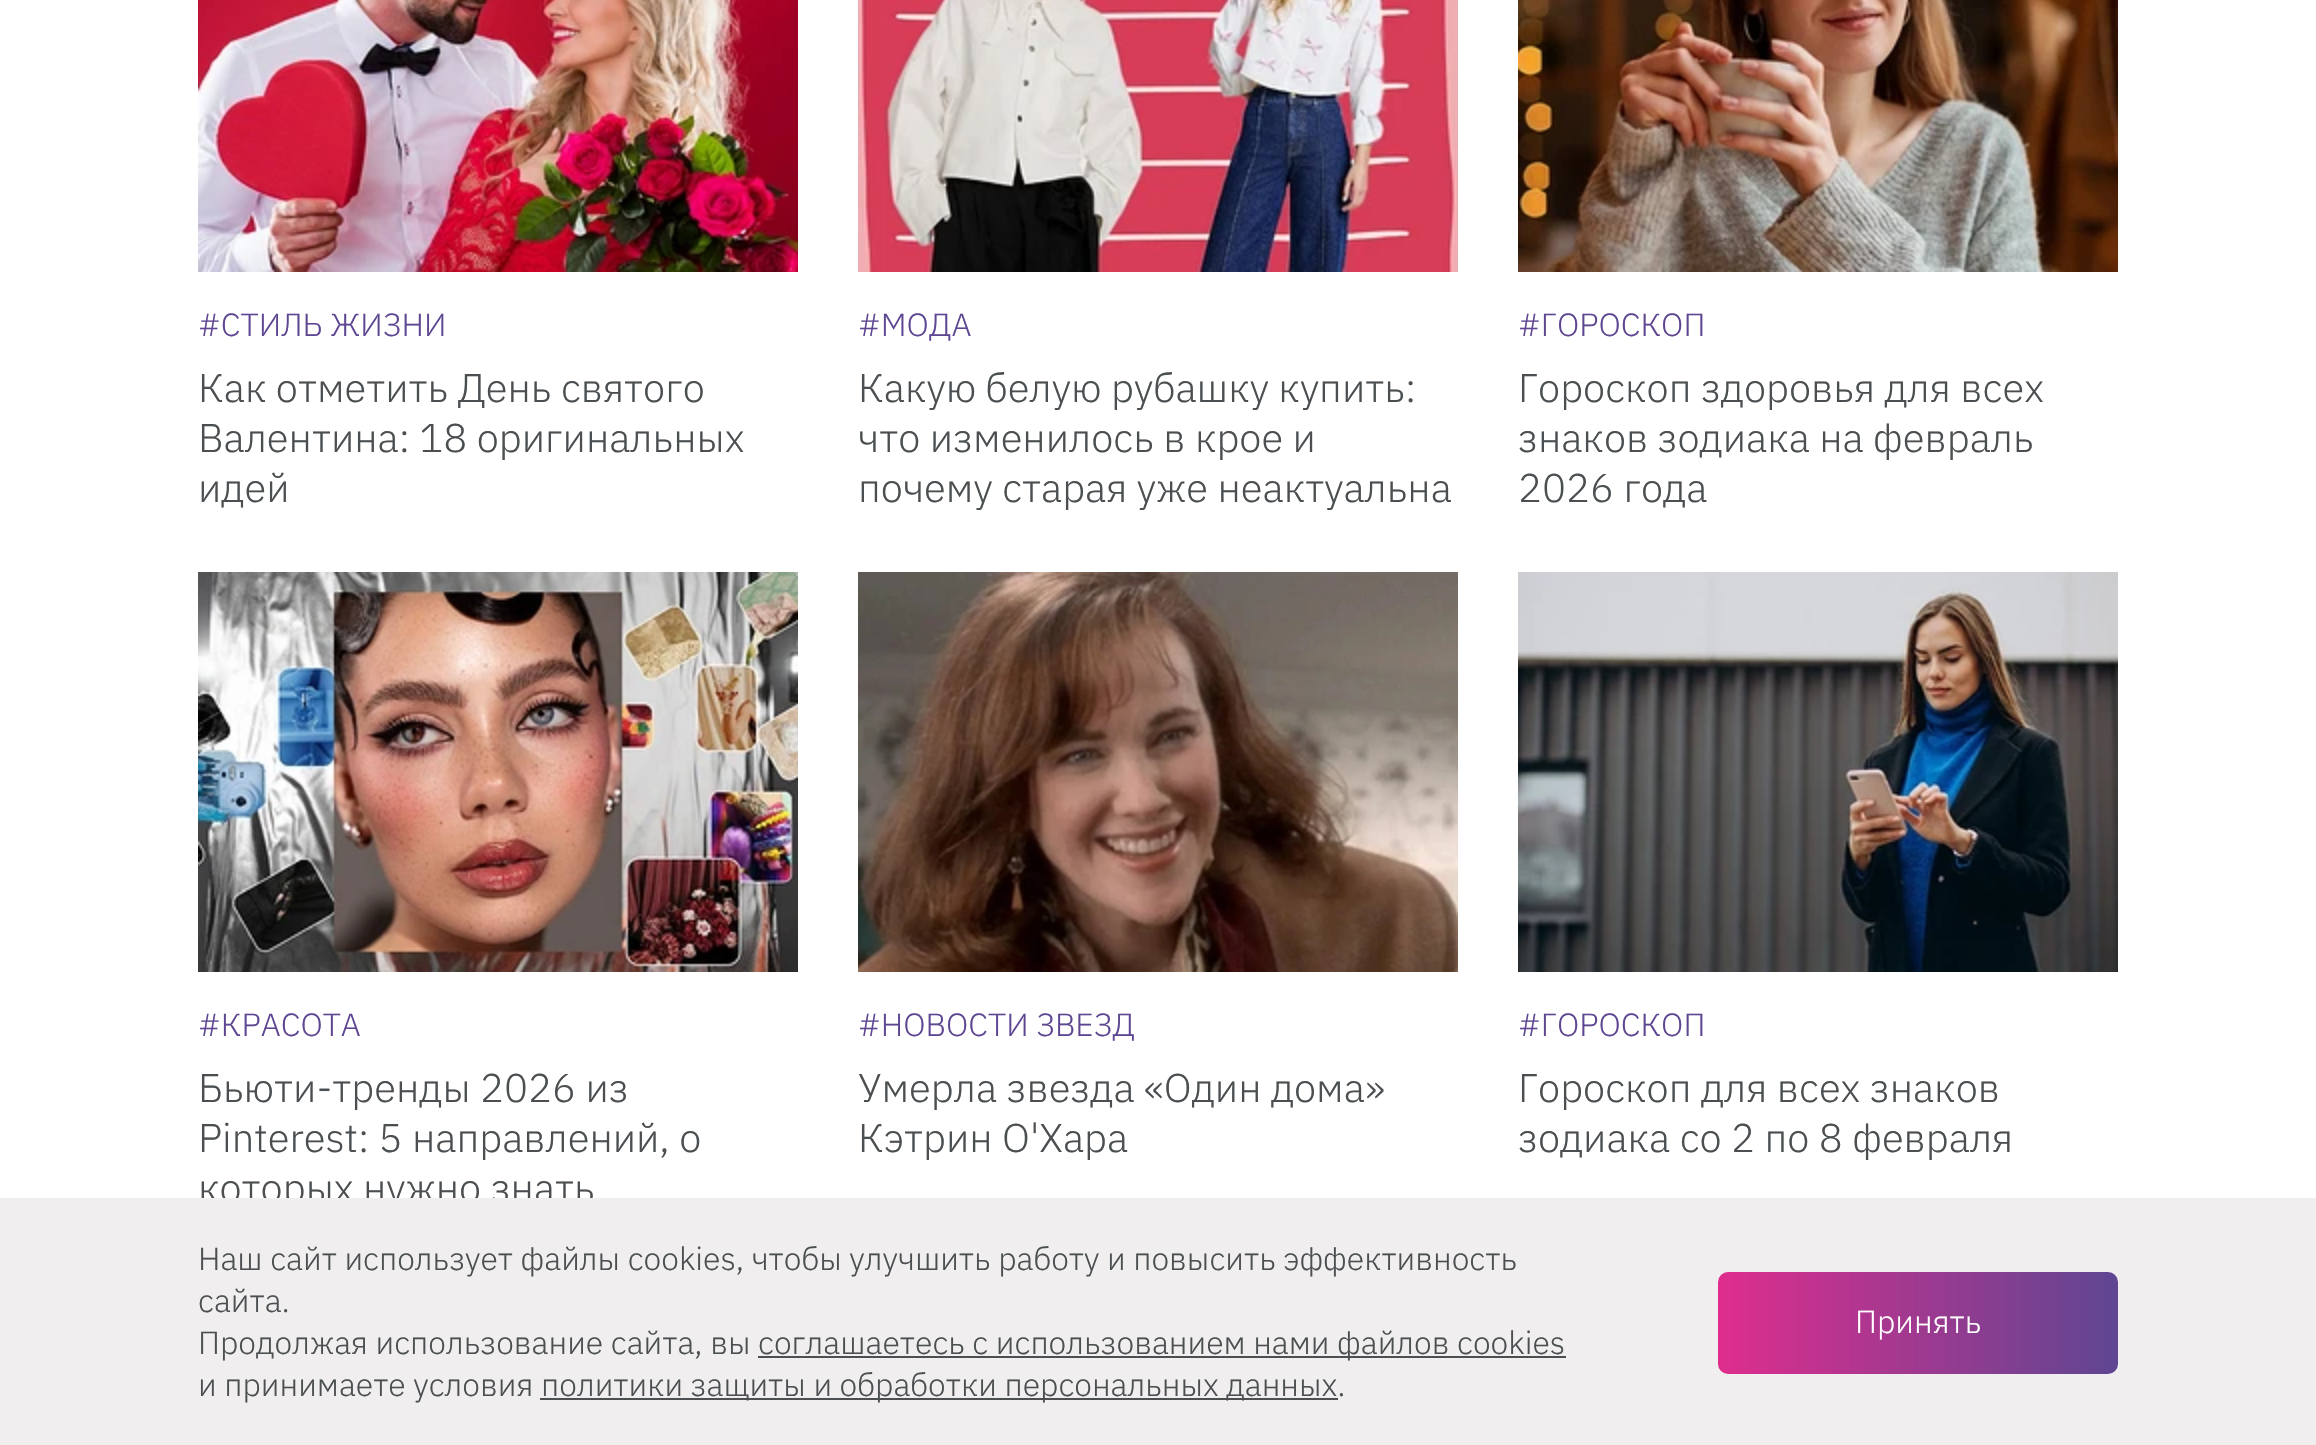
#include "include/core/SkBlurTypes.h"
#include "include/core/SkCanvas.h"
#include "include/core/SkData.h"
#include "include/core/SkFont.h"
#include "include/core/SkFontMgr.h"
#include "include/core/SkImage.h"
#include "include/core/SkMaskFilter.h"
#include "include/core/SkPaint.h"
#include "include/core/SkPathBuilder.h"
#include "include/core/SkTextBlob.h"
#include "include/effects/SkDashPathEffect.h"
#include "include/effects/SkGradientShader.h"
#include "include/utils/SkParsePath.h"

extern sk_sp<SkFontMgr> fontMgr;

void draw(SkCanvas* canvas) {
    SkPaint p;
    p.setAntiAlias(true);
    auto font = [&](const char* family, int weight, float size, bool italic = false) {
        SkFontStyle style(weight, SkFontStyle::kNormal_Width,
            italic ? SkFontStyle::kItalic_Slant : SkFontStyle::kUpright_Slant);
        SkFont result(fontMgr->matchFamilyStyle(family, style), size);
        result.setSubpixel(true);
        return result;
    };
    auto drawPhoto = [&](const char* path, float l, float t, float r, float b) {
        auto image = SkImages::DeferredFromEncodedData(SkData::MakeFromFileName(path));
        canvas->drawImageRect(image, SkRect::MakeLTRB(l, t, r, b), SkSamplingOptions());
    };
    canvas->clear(0xFFFFFFFF);
    drawPhoto("media/1.png", 198, 0, 798, 272);
    auto font1 = font("IBM Plex Sans", 300, 32);
    p.setColor(0xFF5E4692);
    canvas->drawString("#СТИЛЬ ЖИЗНИ", 198, 336, font1, p);
    auto font2 = font("IBM Plex Sans", 300, 40);
    p.setColor(0xFF4B4F51);
    {
        const struct { const char* s; float x, y; } items[] = {
            {"Как отметить День святого", 198, 402},
            {"Валентина: 18 оригинальных", 198, 452},
            {"идей", 198, 502},
        };
        for (auto [s, x, y] : items) {
            canvas->drawString(s, x, y, font2, p);
        }
    }
    drawPhoto("media/2.png", 858, 0, 1458, 272);
    p.setColor(0xFF5E4692);
    canvas->drawString("#МОДА", 858, 336, font1, p);
    p.setColor(0xFF4B4F51);
    {
        const struct { const char* s; float x, y; } items[] = {
            {"Какую белую рубашку купить:", 858, 402},
            {"что изменилось в крое и", 858, 452},
            {"почему старая уже неактуальна", 858, 502},
        };
        for (auto [s, x, y] : items) {
            canvas->drawString(s, x, y, font2, p);
        }
    }
    drawPhoto("media/3.png", 1518, 0, 2118, 272);
    p.setColor(0xFF5E4692);
    canvas->drawString("#ГОРОСКОП", 1518, 336, font1, p);
    p.setColor(0xFF4B4F51);
    {
        const struct { const char* s; float x, y; } items[] = {
            {"Гороскоп здоровья для всех", 1518, 402},
            {"знаков зодиака на февраль", 1518, 452},
            {"2026 года", 1518, 502},
        };
        for (auto [s, x, y] : items) {
            canvas->drawString(s, x, y, font2, p);
        }
    }
    drawPhoto("media/4.png", 198, 572, 798, 972);
    p.setColor(0xFF5E4692);
    canvas->drawString("#КРАСОТА", 198, 1036, font1, p);
    p.setColor(0xFF4B4F51);
    {
        const struct { const char* s; float x, y; } items[] = {
            {"Бьюти-тренды 2026 из", 198, 1102},
            {"Pinterest: 5 направлений, о", 198, 1152},
            {"которых нужно знать", 198, 1202},
        };
        for (auto [s, x, y] : items) {
            canvas->drawString(s, x, y, font2, p);
        }
    }
    drawPhoto("media/5.png", 858, 572, 1458, 972);
    p.setColor(0xFF5E4692);
    canvas->drawString("#НОВОСТИ ЗВЕЗД", 858, 1036, font1, p);
    p.setColor(0xFF4B4F51);
    canvas->drawString("Умерла звезда «Один дома»", 858, 1102, font2, p);
    canvas->drawString("Кэтрин О'Хара", 858, 1152, font2, p);
    drawPhoto("media/6.png", 1518, 572, 2118, 972);
    p.setColor(0xFF5E4692);
    canvas->drawString("#ГОРОСКОП", 1518, 1036, font1, p);
    p.setColor(0xFF4B4F51);
    canvas->drawString("Гороскоп для всех знаков", 1518, 1102, font2, p);
    canvas->drawString("зодиака со 2 по 8 февраля", 1518, 1152, font2, p);
    p.setColor(0xFFF0EEEF);
    canvas->drawRect(SkRect::MakeLTRB(0, 1198, 2316, 1445), p);
    p.setColor(0xFF4B4F51);
    {
        const struct { const char* s; float x, y; } items[] = {
            {"Наш сайт использует файлы cookies, чтобы улучшить работу и повысить эффективность", 198, 1270},
            {"сайта.", 198, 1312},
            {"Продолжая использование сайта, вы", 198, 1354},
        };
        for (auto [s, x, y] : items) {
            canvas->drawString(s, x, y, font1, p);
        }
    }
    canvas->drawRect(SkRect::MakeLTRB(758, 1356, 1566, 1358), p);
    canvas->drawString("соглашаетесь c использованием нами файлов cookies", 758, 1354, font1, p);
    canvas->drawString("и принимаете условия", 198, 1396, font1, p);
    canvas->drawRect(SkRect::MakeLTRB(540, 1398, 1338, 1400), p);
    canvas->drawString("политики защиты и обработки персональных данных.", 541, 1396, font1, p);
    {
        const SkColor colors[] = {0xFFDF2D8D, 0xFF5E4692};
        const float stops[] = {0, 1};
        const SkPoint ends[] = {{1718, 1323}, {2118, 1323}};
        p.setShader(SkGradientShader::MakeLinear(ends, colors, stops, 2, SkTileMode::kClamp));
        p.setAlpha(255);
    }
    canvas->drawRoundRect(SkRect::MakeLTRB(1718, 1272, 2118, 1374), 10, 10, p);
    p.setShader(nullptr);
    p.setColor(0xFFFFFFFF);
    canvas->drawString("Принять", 1855, 1333, font1, p);
}
